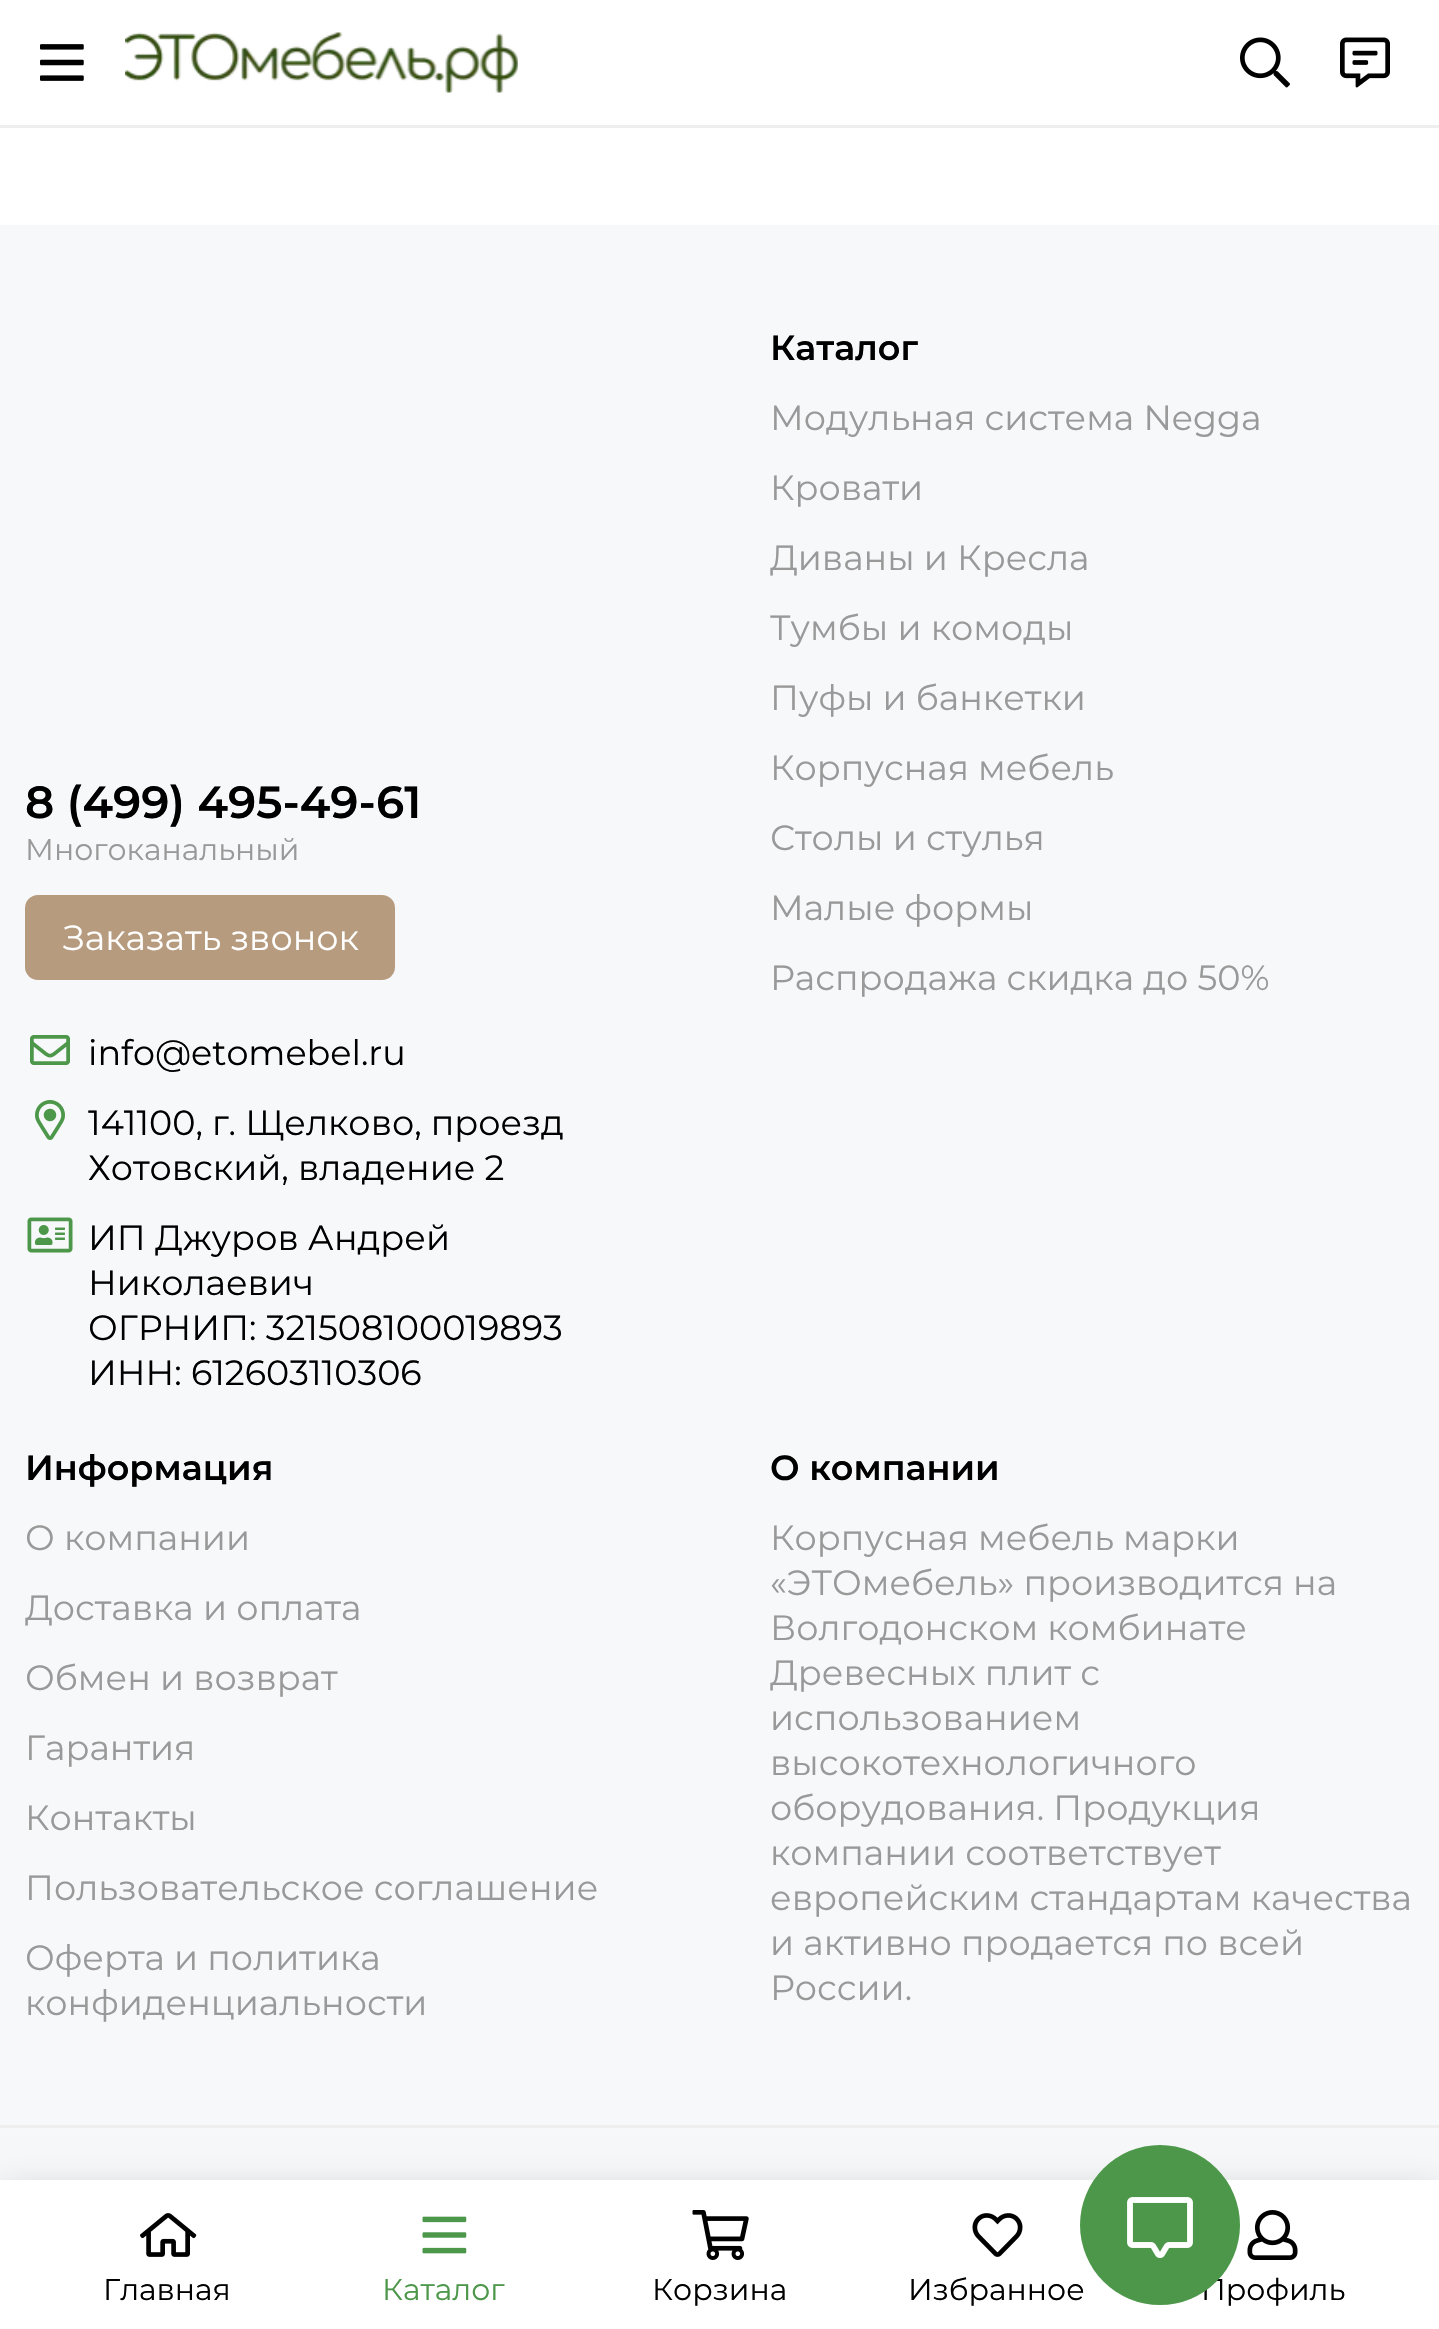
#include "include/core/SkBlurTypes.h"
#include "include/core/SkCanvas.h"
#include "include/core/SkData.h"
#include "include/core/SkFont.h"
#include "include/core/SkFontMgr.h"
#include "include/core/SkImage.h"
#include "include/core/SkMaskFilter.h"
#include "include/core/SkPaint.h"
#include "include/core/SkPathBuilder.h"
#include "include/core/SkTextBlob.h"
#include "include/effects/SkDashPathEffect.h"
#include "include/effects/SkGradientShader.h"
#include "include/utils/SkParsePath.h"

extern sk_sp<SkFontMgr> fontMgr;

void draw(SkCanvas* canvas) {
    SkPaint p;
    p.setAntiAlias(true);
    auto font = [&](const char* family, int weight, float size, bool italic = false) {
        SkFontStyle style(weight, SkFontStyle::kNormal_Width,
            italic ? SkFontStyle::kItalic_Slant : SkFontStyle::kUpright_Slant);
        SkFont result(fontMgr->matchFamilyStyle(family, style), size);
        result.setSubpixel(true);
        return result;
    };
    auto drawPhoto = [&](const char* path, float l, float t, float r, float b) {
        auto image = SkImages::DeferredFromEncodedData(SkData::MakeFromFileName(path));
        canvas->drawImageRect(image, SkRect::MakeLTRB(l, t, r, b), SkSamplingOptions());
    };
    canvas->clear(0xFFFFFFFF);
    p.setColor(0xFFEEEEEE);
    canvas->drawRect(SkRect::MakeLTRB(0, 125, 1439, 128), p);
    drawPhoto("media/1.png", 40, 44, 84, 81);
    drawPhoto("media/2.png", 125, 32, 518, 93);
    drawPhoto("media/3.png", 1240, 37, 1290, 88);
    drawPhoto("media/4.png", 1340, 37, 1390, 88);
    p.setColor(0xFFF7F8FA);
    canvas->drawRect(SkRect::MakeLTRB(0, 225, 1439, 2125), p);
    auto font1 = font("Montserrat", 600, 35);
    p.setColor(0xFF000000);
    canvas->drawString("Каталог", 770, 360, font1, p);
    auto font2 = font("Montserrat", 400, 35);
    p.setColor(0xFF999999);
    {
        const struct { const char* s; float x, y; } items[] = {
            {"Модульная система Negga", 770, 430},
            {"Кровати", 770, 500},
            {"Диваны и Кресла", 770, 570},
            {"Тумбы и комоды", 770, 640},
            {"Пуфы и банкетки", 770, 710},
            {"Корпусная мебель", 770, 780},
            {"Столы и стулья", 770, 850},
            {"Малые формы", 770, 920},
            {"Распродажа скидка до 50%", 770, 990},
        };
        for (auto [s, x, y] : items) {
            canvas->drawString(s, x, y, font2, p);
        }
    }
    auto font3 = font("Montserrat", 600, 45);
    p.setColor(0xFF000000);
    canvas->drawString("8 (499) 495-49-61", 25, 818, font3, p);
    auto font4 = font("Montserrat", 400, 30);
    p.setColor(0xFF999999);
    canvas->drawString("Многоканальный", 25, 860, font4, p);
    p.setColor(0xFFB79B7E);
    canvas->drawRoundRect(SkRect::MakeLTRB(25, 895, 395, 980), 13, 13, p);
    p.setColor(0xFFFFFFFF);
    canvas->drawString("Заказать звонок", 63, 950, font2, p);
    drawPhoto("media/5.png", 30, 1035, 70, 1065);
    p.setColor(0xFF000000);
    canvas->drawString("info@etomebel.ru", 88, 1065, font2, p);
    drawPhoto("media/6.png", 35, 1100, 65, 1140);
    canvas->drawString("141100, г. Щелково, проезд", 88, 1135, font2, p);
    canvas->drawString("Хотовский, владение 2", 88, 1180, font2, p);
    drawPhoto("media/7.png", 27, 1217, 73, 1253);
    {
        const struct { const char* s; float x, y; } items[] = {
            {"ИП Джуров Андрей", 88, 1250},
            {"Николаевич", 88, 1295},
            {"ОГРНИП: 321508100019893", 88, 1340},
            {"ИНН: 612603110306", 88, 1385},
        };
        for (auto [s, x, y] : items) {
            canvas->drawString(s, x, y, font2, p);
        }
    }
    canvas->drawString("Информация", 25, 1480, font1, p);
    p.setColor(0xFF999999);
    {
        const struct { const char* s; float x, y; } items[] = {
            {"О компании", 25, 1550},
            {"Доставка и оплата", 25, 1620},
            {"Обмен и возврат", 25, 1690},
            {"Гарантия", 25, 1760},
            {"Контакты", 25, 1830},
            {"Пользовательское соглашение", 25, 1900},
            {"Оферта и политика", 25, 1970},
            {"конфиденциальности", 25, 2015},
        };
        for (auto [s, x, y] : items) {
            canvas->drawString(s, x, y, font2, p);
        }
    }
    p.setColor(0xFF000000);
    canvas->drawString("О компании", 770, 1480, font1, p);
    p.setColor(0xFF999999);
    {
        const struct { const char* s; float x, y; } items[] = {
            {"Корпусная мебель марки", 770, 1550},
            {"«ЭТОмебель» производится на", 770, 1595},
            {"Волгодонском комбинате", 770, 1640},
            {"Древесных плит с", 770, 1685},
            {"использованием", 770, 1730},
            {"высокотехнологичного", 770, 1775},
            {"оборудования. Продукция", 770, 1820},
            {"компании соответствует", 770, 1865},
            {"европейским стандартам качества", 770, 1910},
            {"и активно продается по всей", 770, 1955},
            {"России.", 770, 2000},
        };
        for (auto [s, x, y] : items) {
            canvas->drawString(s, x, y, font2, p);
        }
    }
    p.setColor(0xFFF7F8FA);
    canvas->drawRect(SkRect::MakeLTRB(0, 2128, 1439, 2180), p);
    p.setColor(0xFFEEEEEE);
    canvas->drawRect(SkRect::MakeLTRB(0, 2125, 1439, 2128), p);
    p.setColor(0x33000000);
    p.setMaskFilter(SkMaskFilter::MakeBlur(kNormal_SkBlurStyle, 19));
    canvas->drawRect(SkRect::MakeLTRB(0, 2193, 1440, 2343), p);
    p.setMaskFilter(nullptr);
    p.setColor(0xFFFFFFFF);
    canvas->drawRect(SkRect::MakeLTRB(0, 2180, 1439, 2329), p);
    drawPhoto("media/8.png", 140, 2213, 197, 2257);
    p.setColor(0xFF000000);
    canvas->drawString("Главная", 103, 2300, font4, p);
    drawPhoto("media/9.png", 422, 2216, 467, 2254);
    p.setColor(0xFF4D974A);
    canvas->drawString("Каталог", 382, 2300, font4, p);
    drawPhoto("media/10.png", 692, 2210, 749, 2260);
    p.setColor(0xFF000000);
    canvas->drawString("Корзина", 652, 2300, font4, p);
    drawPhoto("media/11.png", 972, 2213, 1023, 2257);
    canvas->drawString("Избранное", 908, 2300, font4, p);
    drawPhoto("media/12.png", 1247, 2210, 1298, 2260);
    canvas->drawString("Профиль", 1201, 2300, font4, p);
    p.setColor(0xFF4D974A);
    canvas->drawCircle(1160, 2225, 80, p);
    drawPhoto("media/13.png", 1127, 2197, 1193, 2258);
}
